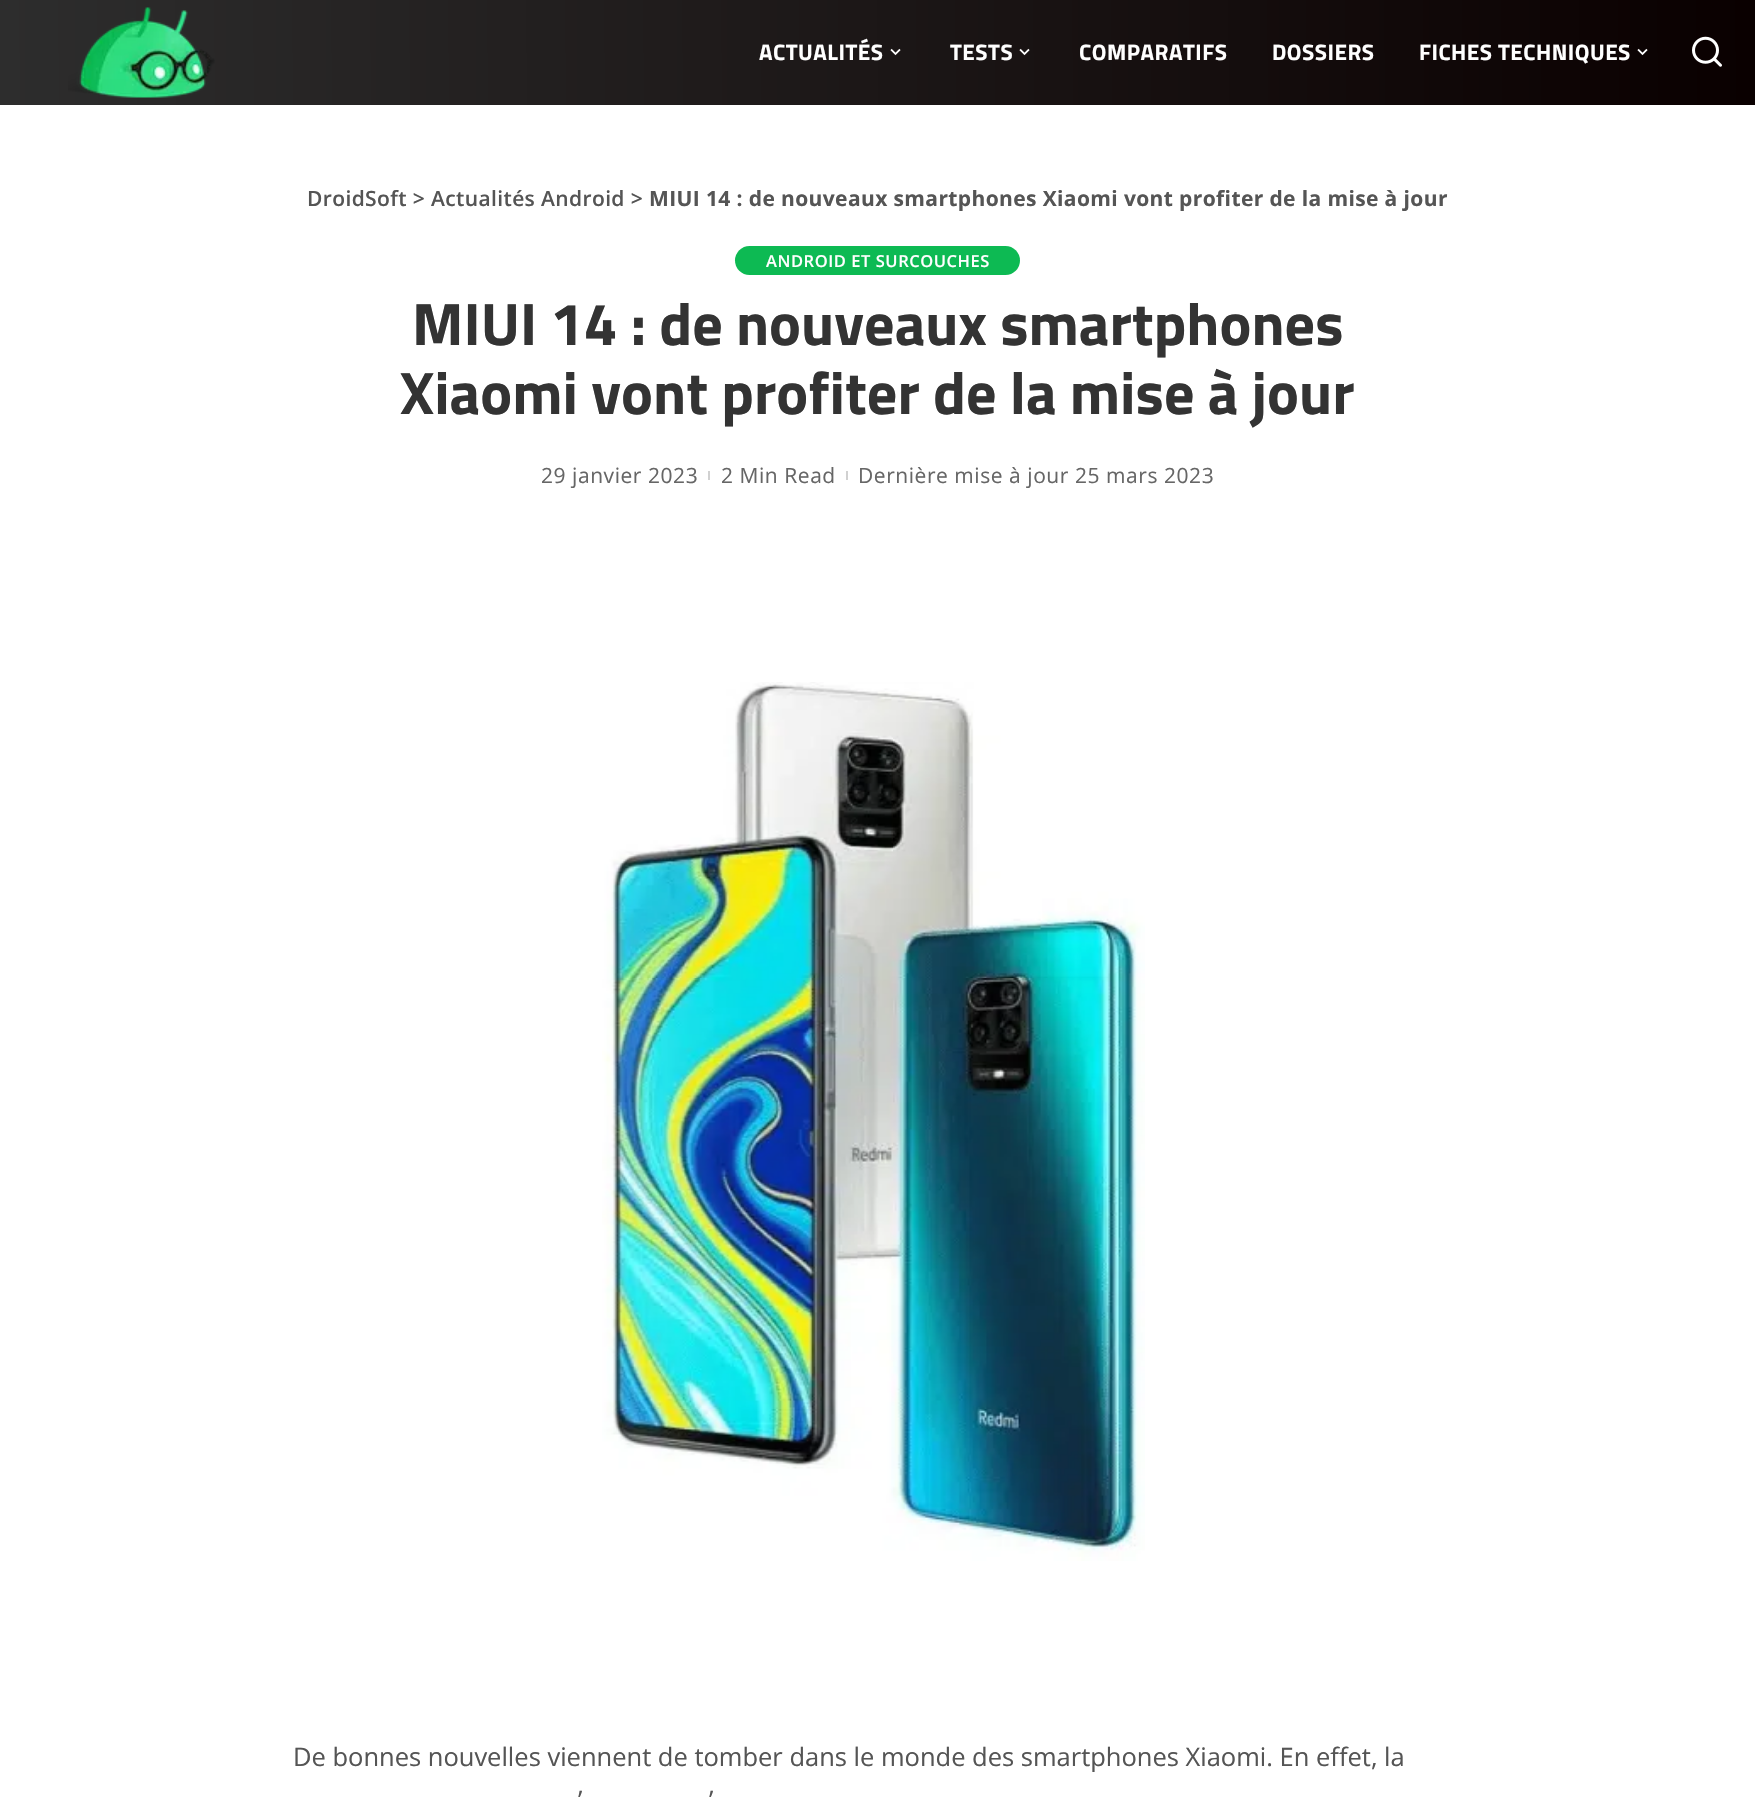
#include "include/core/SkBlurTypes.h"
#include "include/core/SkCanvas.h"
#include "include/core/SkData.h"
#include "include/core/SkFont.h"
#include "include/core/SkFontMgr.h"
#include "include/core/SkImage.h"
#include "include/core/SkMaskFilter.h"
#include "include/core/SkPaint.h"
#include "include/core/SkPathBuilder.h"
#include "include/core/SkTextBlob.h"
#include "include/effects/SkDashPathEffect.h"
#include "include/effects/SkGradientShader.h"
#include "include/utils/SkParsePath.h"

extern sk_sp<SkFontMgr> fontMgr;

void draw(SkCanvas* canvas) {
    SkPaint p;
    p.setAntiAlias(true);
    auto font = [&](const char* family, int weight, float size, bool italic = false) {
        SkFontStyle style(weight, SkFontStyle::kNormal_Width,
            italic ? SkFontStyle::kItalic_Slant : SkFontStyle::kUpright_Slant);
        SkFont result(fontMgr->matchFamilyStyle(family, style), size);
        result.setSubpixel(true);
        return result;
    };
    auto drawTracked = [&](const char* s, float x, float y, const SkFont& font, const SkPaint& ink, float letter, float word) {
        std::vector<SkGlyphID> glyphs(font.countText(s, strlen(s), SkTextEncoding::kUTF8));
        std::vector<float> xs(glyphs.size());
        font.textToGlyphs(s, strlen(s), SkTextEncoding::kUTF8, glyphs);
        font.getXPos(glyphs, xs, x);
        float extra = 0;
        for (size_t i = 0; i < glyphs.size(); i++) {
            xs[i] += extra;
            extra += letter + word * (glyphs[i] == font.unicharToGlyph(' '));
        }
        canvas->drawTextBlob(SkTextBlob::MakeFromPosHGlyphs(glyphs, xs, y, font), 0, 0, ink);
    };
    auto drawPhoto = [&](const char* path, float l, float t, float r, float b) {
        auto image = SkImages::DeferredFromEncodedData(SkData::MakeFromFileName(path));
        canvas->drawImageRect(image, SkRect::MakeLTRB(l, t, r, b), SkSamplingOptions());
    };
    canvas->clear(0xFFFFFFFF);
    {
        const SkColor colors[] = {0xFF2D2D2D, 0xFF0A0000};
        const float stops[] = {0, 1};
        const SkPoint ends[] = {{0, 53}, {1755, 52}};
        p.setShader(SkGradientShader::MakeLinear(ends, colors, stops, 2, SkTileMode::kClamp));
        p.setAlpha(255);
    }
    canvas->drawRect(SkRect::MakeLTRB(0, 0, 1755, 105), p);
    drawPhoto("media/1.png", 68, 7, 215, 98);
    auto font1 = font("Titillium Web", 700, 22.5f);
    p.setShader(nullptr);
    p.setColor(0xFFFFFFFF);
    drawTracked("ACTUALITÉS", 759, 60, font1, p, 0.5f, 0);
    drawPhoto("media/2.png", 890, 48, 901, 56);
    drawTracked("TESTS", 950, 60, font1, p, 0.5f, 0);
    drawPhoto("media/3.png", 1019, 48, 1030, 56);
    {
        const struct { const char* s; float x, y; } items[] = {
            {"COMPARATIFS", 1079, 60},
            {"DOSSIERS", 1272, 60},
            {"FICHES TECHNIQUES", 1419, 60},
        };
        for (auto [s, x, y] : items) {
            drawTracked(s, x, y, font1, p, 0.5f, 0);
        }
    }
    drawPhoto("media/4.png", 1637, 48, 1648, 56);
    drawPhoto("media/5.png", 1692, 36, 1722, 67);
    auto font2 = font("Open Sans", 600, 21);
    p.setColor(0xFF555555);
    drawTracked("DroidSoft > Actualités Android >", 307, 206, font2, p, 0.38f, 0);
    auto font3 = font("Open Sans", 700, 21);
    drawTracked("MIUI 14 : de nouveaux smartphones Xiaomi vont profiter de la mise à jour", 649, 206, font3, p, 0.38f, 0);
    p.setColor(0xFF0DBA53);
    canvas->drawRoundRect(SkRect::MakeLTRB(735, 246, 1020, 275), 14.5f, 14.5f, p);
    auto font4 = font("Open Sans", 600, 16.5f);
    p.setColor(0xFFFFFFFF);
    drawTracked("ANDROID ET SURCOUCHES", 766, 267, font4, p, 0.55f, 0);
    auto font5 = font("Titillium Web", 700, 60);
    p.setColor(0xFF333333);
    canvas->drawString("MIUI 14 : de nouveaux smartphones", 412, 345, font5, p);
    canvas->drawString("Xiaomi vont profiter de la mise à jour", 400, 414, font5, p);
    auto font6 = font("Open Sans", 400, 21);
    p.setColor(0xFF666666);
    drawTracked("29 janvier 2023", 541, 483, font6, p, 0.55f, 0);
    p.setColor(0xFFD1D1D1);
    canvas->drawRect(SkRect::MakeLTRB(708, 471, 710, 480), p);
    p.setColor(0xFF666666);
    drawTracked("2 Min Read", 721, 483, font6, p, 0.55f, 0);
    p.setColor(0xFFD1D1D1);
    canvas->drawRect(SkRect::MakeLTRB(846, 471, 848, 480), p);
    p.setColor(0xFF666666);
    drawTracked("Dernière mise à jour 25 mars 2023", 858, 483, font6, p, 0.55f, 0);
    drawPhoto("media/6.png", 602, 682, 1145, 1561);
    auto font7 = font("Open Sans", 400, 25.5f);
    p.setColor(0xFF555555);
    {
        const struct { const char* s; float x, y; } items[] = {
            {"De bonnes nouvelles viennent de tomber dans le monde des smartphones Xiaomi. En effet, la", 293, 1766},
            {"’", 578, 1809},
            {"’", 709, 1809},
        };
        for (auto [s, x, y] : items) {
            canvas->drawString(s, x, y, font7, p);
        }
    }
}
